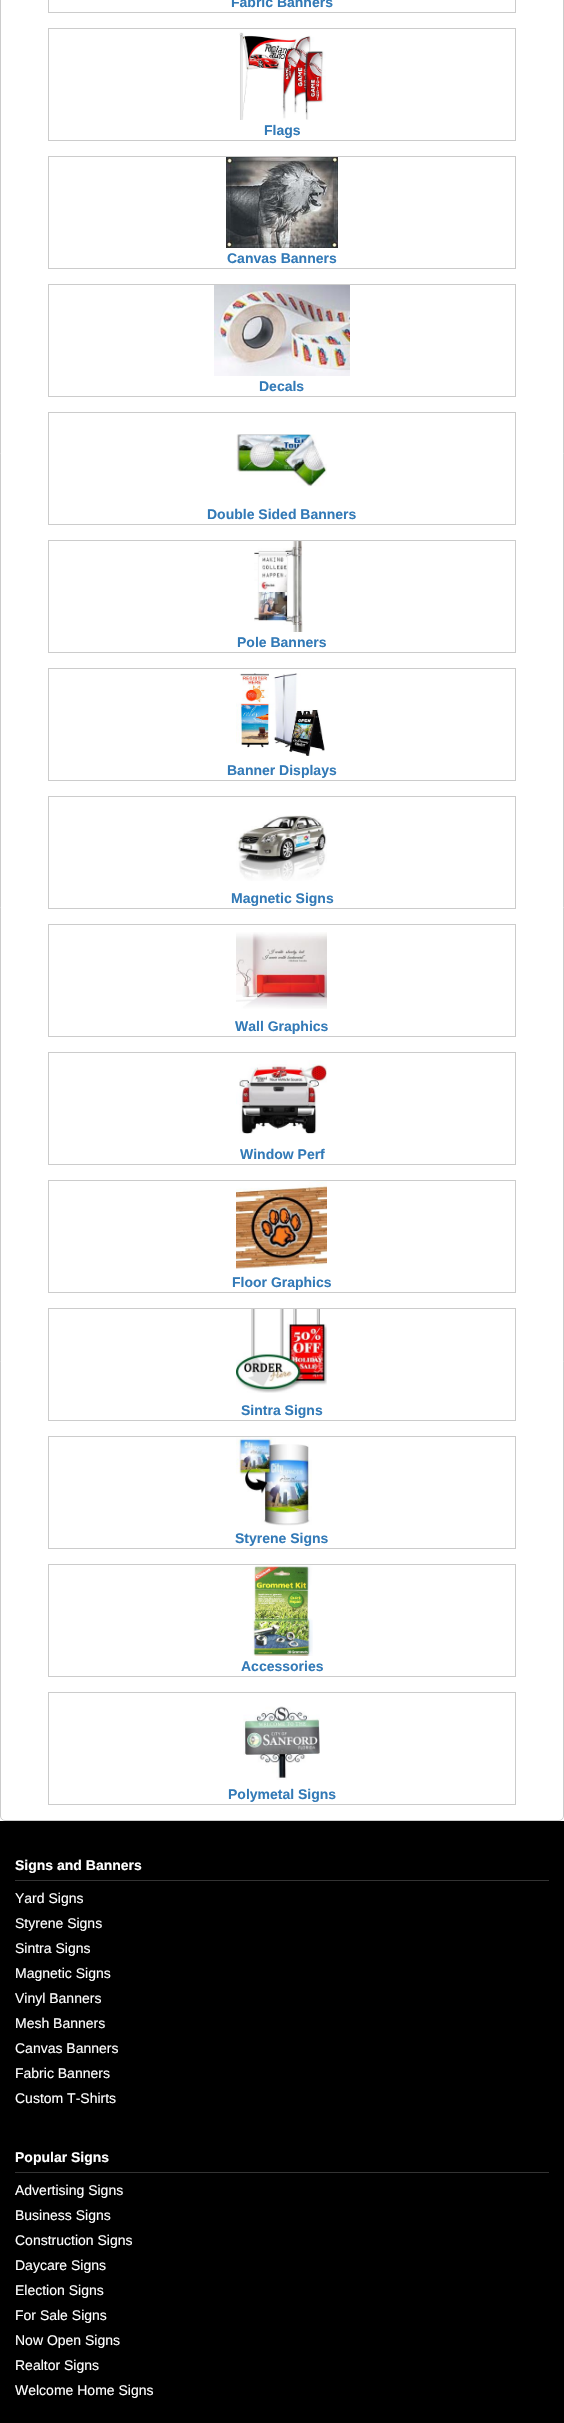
#include "include/core/SkBlurTypes.h"
#include "include/core/SkCanvas.h"
#include "include/core/SkData.h"
#include "include/core/SkFont.h"
#include "include/core/SkFontMgr.h"
#include "include/core/SkImage.h"
#include "include/core/SkMaskFilter.h"
#include "include/core/SkPaint.h"
#include "include/core/SkPathBuilder.h"
#include "include/core/SkTextBlob.h"
#include "include/effects/SkDashPathEffect.h"
#include "include/effects/SkGradientShader.h"
#include "include/utils/SkParsePath.h"

extern sk_sp<SkFontMgr> fontMgr;

void draw(SkCanvas* canvas) {
    SkPaint p;
    p.setAntiAlias(true);
    auto font = [&](const char* family, int weight, float size, bool italic = false) {
        SkFontStyle style(weight, SkFontStyle::kNormal_Width,
            italic ? SkFontStyle::kItalic_Slant : SkFontStyle::kUpright_Slant);
        SkFont result(fontMgr->matchFamilyStyle(family, style), size);
        result.setSubpixel(true);
        return result;
    };
    auto drawPhoto = [&](const char* path, float l, float t, float r, float b) {
        auto image = SkImages::DeferredFromEncodedData(SkData::MakeFromFileName(path));
        canvas->drawImageRect(image, SkRect::MakeLTRB(l, t, r, b), SkSamplingOptions());
    };
    canvas->clear(0xFFFFFFFF);
    p.setStyle(SkPaint::kStroke_Style);
    p.setStrokeWidth(1);
    p.setColor(0xFFCCCCCC);
    canvas->drawRoundRect(SkRect::MakeLTRB(0.5f, -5.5f, 563.5f, 1820.5f), 4.5f, 4.5f, p);
    canvas->drawRect(SkRect::MakeLTRB(48.5f, -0.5f, 515.5f, 12.5f), p);
    auto font1 = font("Liberation Sans", 700, 14);
    p.setStyle(SkPaint::kFill_Style);
    p.setColor(0xFF337AB7);
    canvas->drawString("Fabric Banners", 231, 7, font1, p);
    p.setStyle(SkPaint::kStroke_Style);
    p.setColor(0xFFCCCCCC);
    canvas->drawRect(SkRect::MakeLTRB(48.5f, 28.5f, 515.5f, 140.5f), p);
    drawPhoto("media/1.png", 239, 32, 326, 120);
    p.setStyle(SkPaint::kFill_Style);
    p.setColor(0xFF337AB7);
    canvas->drawString("Flags", 264, 135, font1, p);
    p.setStyle(SkPaint::kStroke_Style);
    p.setColor(0xFFCCCCCC);
    canvas->drawRect(SkRect::MakeLTRB(48.5f, 156.5f, 515.5f, 268.5f), p);
    drawPhoto("media/2.png", 226, 157, 338, 248);
    p.setStyle(SkPaint::kFill_Style);
    p.setColor(0xFF337AB7);
    canvas->drawString("Canvas Banners", 227, 263, font1, p);
    p.setStyle(SkPaint::kStroke_Style);
    p.setColor(0xFFCCCCCC);
    canvas->drawRect(SkRect::MakeLTRB(48.5f, 284.5f, 515.5f, 396.5f), p);
    drawPhoto("media/3.png", 214, 285, 350, 376);
    p.setStyle(SkPaint::kFill_Style);
    p.setColor(0xFF337AB7);
    canvas->drawString("Decals", 259, 391, font1, p);
    p.setStyle(SkPaint::kStroke_Style);
    p.setColor(0xFFCCCCCC);
    canvas->drawRect(SkRect::MakeLTRB(48.5f, 412.5f, 515.5f, 524.5f), p);
    drawPhoto("media/4.png", 236, 434, 327, 487);
    p.setStyle(SkPaint::kFill_Style);
    p.setColor(0xFF337AB7);
    canvas->drawString("Double Sided Banners", 207, 519, font1, p);
    p.setStyle(SkPaint::kStroke_Style);
    p.setColor(0xFFCCCCCC);
    canvas->drawRect(SkRect::MakeLTRB(48.5f, 540.5f, 515.5f, 652.5f), p);
    drawPhoto("media/5.png", 254, 541, 303, 632);
    p.setStyle(SkPaint::kFill_Style);
    p.setColor(0xFF337AB7);
    canvas->drawString("Pole Banners", 237, 647, font1, p);
    p.setStyle(SkPaint::kStroke_Style);
    p.setColor(0xFFCCCCCC);
    canvas->drawRect(SkRect::MakeLTRB(48.5f, 668.5f, 515.5f, 780.5f), p);
    drawPhoto("media/6.png", 236, 673, 325, 756);
    p.setStyle(SkPaint::kFill_Style);
    p.setColor(0xFF337AB7);
    canvas->drawString("Banner Displays", 227, 775, font1, p);
    p.setStyle(SkPaint::kStroke_Style);
    p.setColor(0xFFCCCCCC);
    canvas->drawRect(SkRect::MakeLTRB(48.5f, 796.5f, 515.5f, 908.5f), p);
    drawPhoto("media/7.png", 236, 815, 327, 881);
    p.setStyle(SkPaint::kFill_Style);
    p.setColor(0xFF337AB7);
    canvas->drawString("Magnetic Signs", 231, 903, font1, p);
    p.setStyle(SkPaint::kStroke_Style);
    p.setColor(0xFFCCCCCC);
    canvas->drawRect(SkRect::MakeLTRB(48.5f, 924.5f, 515.5f, 1036.5f), p);
    drawPhoto("media/8.png", 236, 932, 327, 1009);
    p.setStyle(SkPaint::kFill_Style);
    p.setColor(0xFF337AB7);
    canvas->drawString("Wall Graphics", 235, 1031, font1, p);
    p.setStyle(SkPaint::kStroke_Style);
    p.setColor(0xFFCCCCCC);
    canvas->drawRect(SkRect::MakeLTRB(48.5f, 1052.5f, 515.5f, 1164.5f), p);
    drawPhoto("media/9.png", 236, 1060, 327, 1134);
    p.setStyle(SkPaint::kFill_Style);
    p.setColor(0xFF337AB7);
    canvas->drawString("Window Perf", 240, 1159, font1, p);
    p.setStyle(SkPaint::kStroke_Style);
    p.setColor(0xFFCCCCCC);
    canvas->drawRect(SkRect::MakeLTRB(48.5f, 1180.5f, 515.5f, 1292.5f), p);
    drawPhoto("media/10.png", 236, 1181, 327, 1269);
    p.setStyle(SkPaint::kFill_Style);
    p.setColor(0xFF337AB7);
    canvas->drawString("Floor Graphics", 232, 1287, font1, p);
    p.setStyle(SkPaint::kStroke_Style);
    p.setColor(0xFFCCCCCC);
    canvas->drawRect(SkRect::MakeLTRB(48.5f, 1308.5f, 515.5f, 1420.5f), p);
    drawPhoto("media/11.png", 236, 1309, 327, 1393);
    p.setStyle(SkPaint::kFill_Style);
    p.setColor(0xFF337AB7);
    canvas->drawString("Sintra Signs", 241, 1415, font1, p);
    p.setStyle(SkPaint::kStroke_Style);
    p.setColor(0xFFCCCCCC);
    canvas->drawRect(SkRect::MakeLTRB(48.5f, 1436.5f, 515.5f, 1548.5f), p);
    drawPhoto("media/12.png", 236, 1437, 312, 1526);
    p.setStyle(SkPaint::kFill_Style);
    p.setColor(0xFF337AB7);
    canvas->drawString("Styrene Signs", 235, 1543, font1, p);
    p.setStyle(SkPaint::kStroke_Style);
    p.setColor(0xFFCCCCCC);
    canvas->drawRect(SkRect::MakeLTRB(48.5f, 1564.5f, 515.5f, 1676.5f), p);
    drawPhoto("media/13.png", 252, 1565, 313, 1656);
    p.setStyle(SkPaint::kFill_Style);
    p.setColor(0xFF337AB7);
    canvas->drawString("Accessories", 241, 1671, font1, p);
    p.setStyle(SkPaint::kStroke_Style);
    p.setColor(0xFFCCCCCC);
    canvas->drawRect(SkRect::MakeLTRB(48.5f, 1692.5f, 515.5f, 1804.5f), p);
    drawPhoto("media/14.png", 243, 1706, 320, 1780);
    p.setStyle(SkPaint::kFill_Style);
    p.setColor(0xFF337AB7);
    canvas->drawString("Polymetal Signs", 228, 1799, font1, p);
    p.setColor(0xFF000000);
    canvas->drawRect(SkRect::MakeLTRB(0, 1821, 564, 2423), p);
    p.setColor(0xFF333333);
    canvas->drawRect(SkRect::MakeLTRB(15, 1880, 549, 1881), p);
    p.setColor(0xFFFFFFFF);
    canvas->drawString("Signs and Banners", 15, 1870, font1, p);
    auto font2 = font("Liberation Sans", 400, 14);
    {
        const struct { const char* s; float x, y; } items[] = {
            {"Yard Signs", 15, 1903},
            {"Styrene Signs", 15, 1928},
            {"Sintra Signs", 15, 1953},
            {"Magnetic Signs", 15, 1978},
            {"Vinyl Banners", 15, 2003},
            {"Mesh Banners", 15, 2028},
            {"Canvas Banners", 15, 2053},
            {"Fabric Banners", 15, 2078},
            {"Custom T-Shirts", 15, 2103},
        };
        for (auto [s, x, y] : items) {
            canvas->drawString(s, x, y, font2, p);
        }
    }
    p.setColor(0xFF333333);
    canvas->drawRect(SkRect::MakeLTRB(15, 2172, 549, 2173), p);
    p.setColor(0xFFFFFFFF);
    canvas->drawString("Popular Signs", 15, 2162, font1, p);
    {
        const struct { const char* s; float x, y; } items[] = {
            {"Advertising Signs", 15, 2195},
            {"Business Signs", 15, 2220},
            {"Construction Signs", 15, 2245},
            {"Daycare Signs", 15, 2270},
            {"Election Signs", 15, 2295},
            {"For Sale Signs", 15, 2320},
            {"Now Open Signs", 15, 2345},
            {"Realtor Signs", 15, 2370},
            {"Welcome Home Signs", 15, 2395},
        };
        for (auto [s, x, y] : items) {
            canvas->drawString(s, x, y, font2, p);
        }
    }
}
